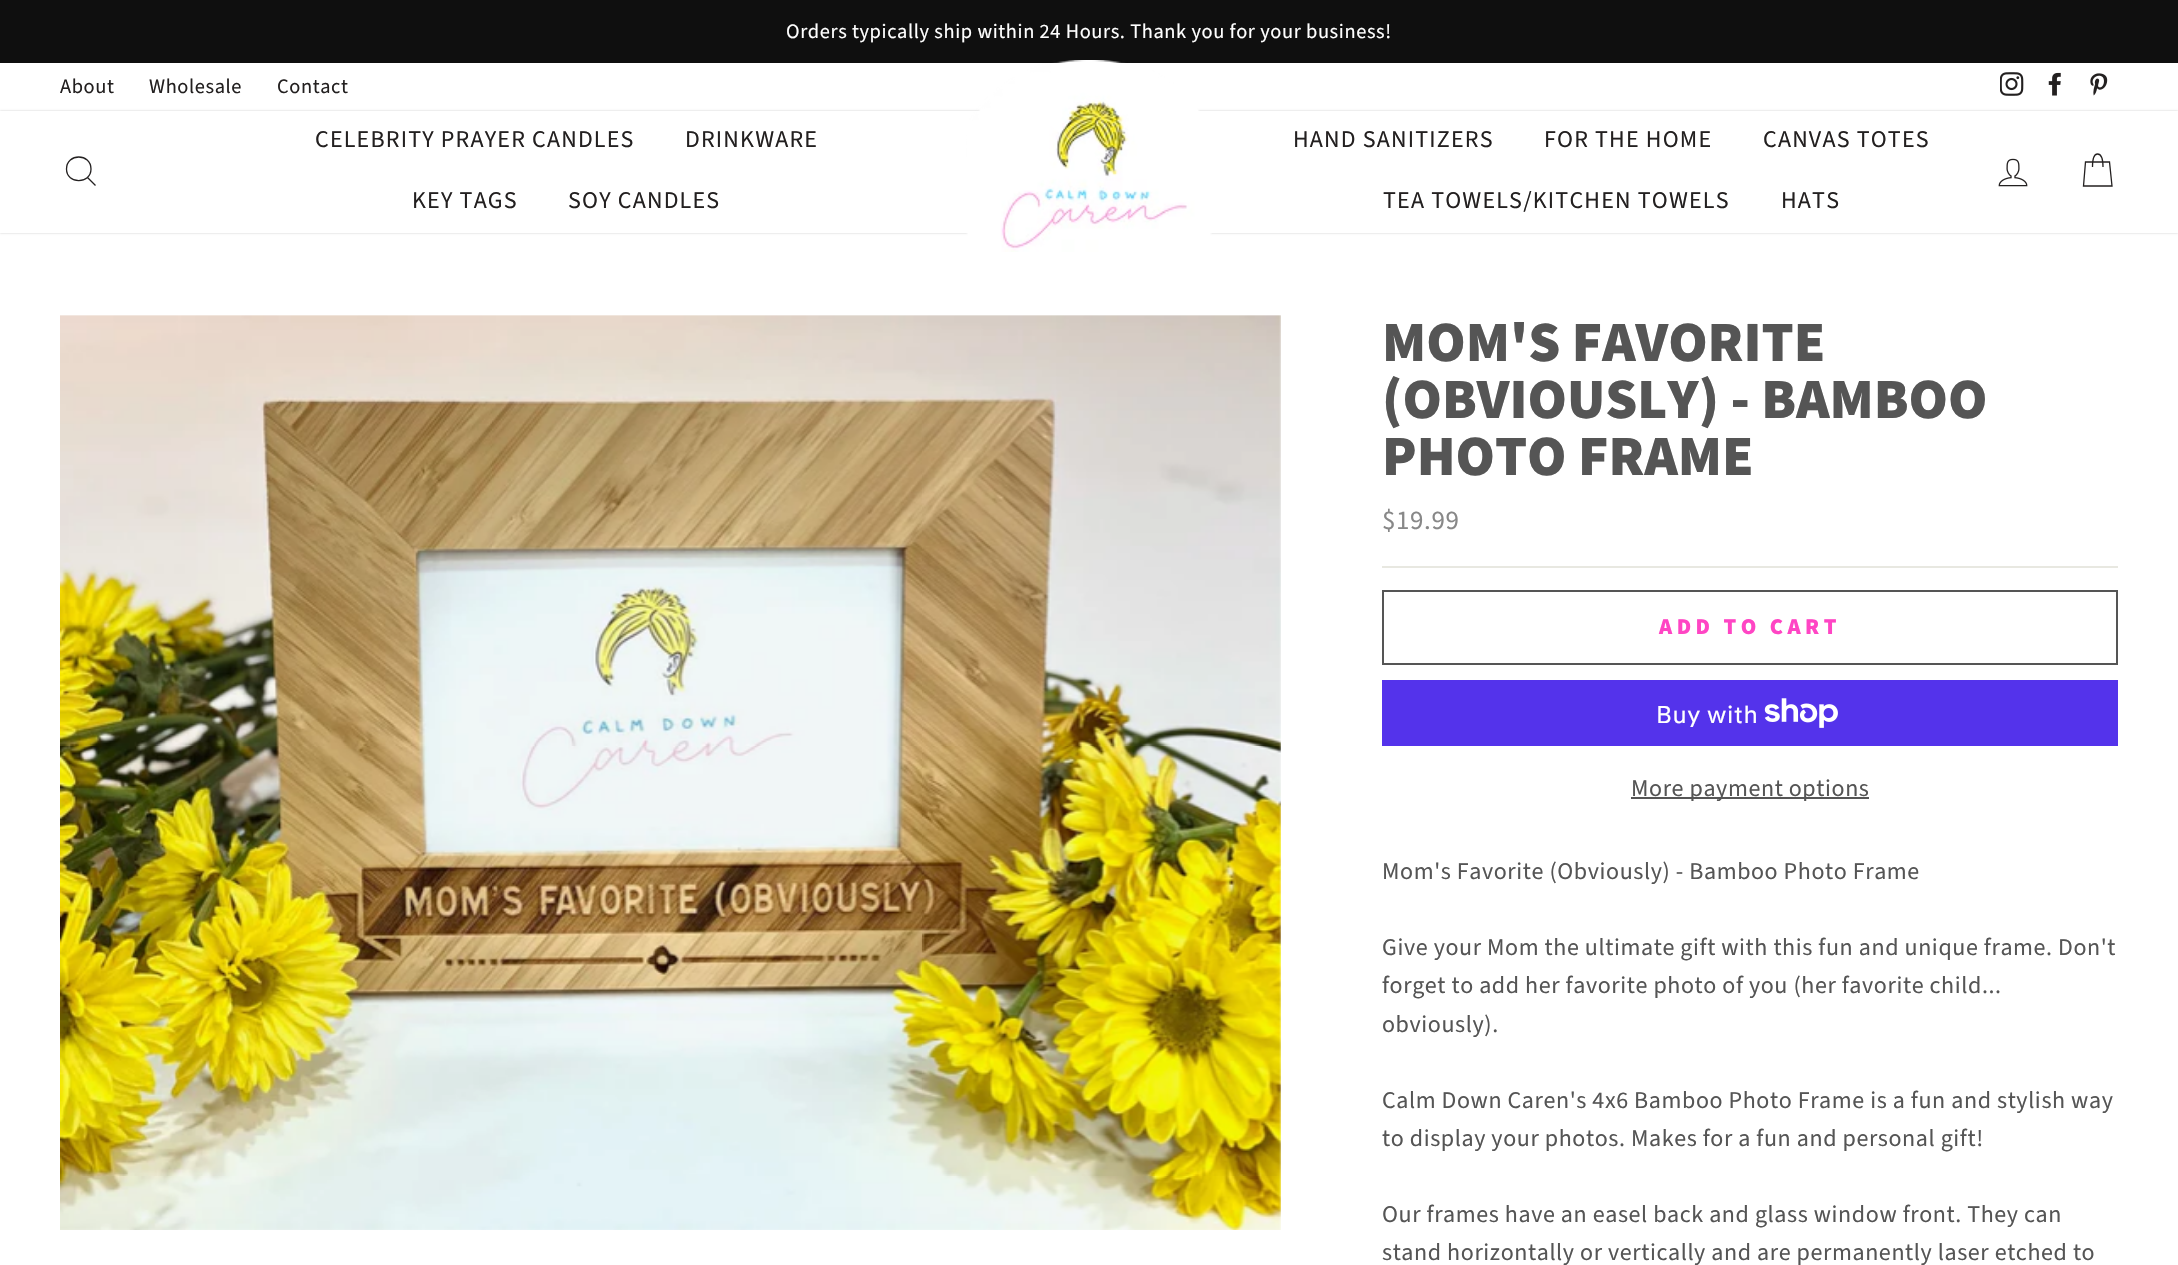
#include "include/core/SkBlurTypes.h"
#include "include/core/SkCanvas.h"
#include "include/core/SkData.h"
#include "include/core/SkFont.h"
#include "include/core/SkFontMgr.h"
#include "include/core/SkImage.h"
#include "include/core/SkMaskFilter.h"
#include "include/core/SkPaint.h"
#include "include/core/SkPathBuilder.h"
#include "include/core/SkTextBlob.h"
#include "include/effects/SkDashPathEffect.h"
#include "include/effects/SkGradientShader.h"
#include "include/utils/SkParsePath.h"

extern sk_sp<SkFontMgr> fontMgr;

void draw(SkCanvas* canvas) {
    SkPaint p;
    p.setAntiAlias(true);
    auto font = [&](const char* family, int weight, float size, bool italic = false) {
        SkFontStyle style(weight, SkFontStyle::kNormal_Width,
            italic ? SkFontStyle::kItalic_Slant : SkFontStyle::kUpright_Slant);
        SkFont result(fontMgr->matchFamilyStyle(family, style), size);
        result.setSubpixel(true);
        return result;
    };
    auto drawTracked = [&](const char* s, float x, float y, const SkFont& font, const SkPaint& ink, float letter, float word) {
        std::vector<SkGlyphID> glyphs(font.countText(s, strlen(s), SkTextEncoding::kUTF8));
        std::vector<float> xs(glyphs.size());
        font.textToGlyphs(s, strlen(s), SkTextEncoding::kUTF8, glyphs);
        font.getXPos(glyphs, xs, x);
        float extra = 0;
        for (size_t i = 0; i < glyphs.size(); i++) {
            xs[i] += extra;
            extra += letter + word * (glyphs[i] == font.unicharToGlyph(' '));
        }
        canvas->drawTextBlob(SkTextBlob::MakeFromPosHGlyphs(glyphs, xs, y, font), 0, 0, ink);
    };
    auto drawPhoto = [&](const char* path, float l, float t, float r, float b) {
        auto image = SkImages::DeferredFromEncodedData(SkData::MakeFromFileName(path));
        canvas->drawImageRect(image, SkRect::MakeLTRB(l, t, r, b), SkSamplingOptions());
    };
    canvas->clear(0xFFFFFFFF);
    p.setColor(0xFF0F0F0F);
    canvas->drawRect(SkRect::MakeLTRB(0, 0, 2178, 63), p);
    auto font1 = font("Source Sans Pro", 400, 20.4f);
    p.setColor(0xFFFFFFFF);
    drawTracked("Orders typically ship within 24 Hours. Thank you for your business!", 786, 38, font1, p, 0.6f, 0);
    p.setColor(0xFF232020);
    {
        const struct { const char* s; float x, y; } items[] = {
            {"About", 60, 93},
            {"Wholesale", 149, 93},
            {"Contact", 277, 93},
        };
        for (auto [s, x, y] : items) {
            drawTracked(s, x, y, font1, p, 0.6f, 0);
        }
    }
    drawPhoto("media/1.png", 2000, 72, 2024, 96);
    drawPhoto("media/2.png", 2048, 72, 2061, 96);
    drawPhoto("media/3.png", 2090, 73, 2108, 96);
    p.setColor(0x33000000);
    p.setMaskFilter(SkMaskFilter::MakeBlur(kNormal_SkBlurStyle, 1));
    canvas->drawRect(SkRect::MakeLTRB(0, 111, 2178, 233), p);
    p.setMaskFilter(nullptr);
    p.setColor(0xFFFFFFFF);
    canvas->drawRect(SkRect::MakeLTRB(0, 111, 2178, 233), p);
    p.setStyle(SkPaint::kStroke_Style);
    p.setStrokeWidth(1.3f);
    p.setColor(0xFF232020);
    canvas->drawPath(SkPathBuilder().moveTo(91, 169).cubicTo(91, 184.5f, 66.5f, 184.5f, 66.5f, 169).cubicTo(66.5f, 153, 91, 153, 91, 169).close().moveTo(95.5f, 185.5f).lineTo(87.5f, 177.5f).detach(), p);
    auto font2 = font("Source Sans Pro", 400, 24);
    p.setStyle(SkPaint::kFill_Style);
    {
        const struct { const char* s; float x, y; } items[] = {
            {"CELEBRITY PRAYER CANDLES", 315, 147},
            {"DRINKWARE", 685, 147},
            {"KEY TAGS", 412, 208},
            {"SOY CANDLES", 568, 208},
        };
        for (auto [s, x, y] : items) {
            drawTracked(s, x, y, font2, p, 1.2f, 0);
        }
    }
    drawPhoto("media/4.png", 966, 60, 1212, 252);
    {
        const struct { const char* s; float x, y; } items[] = {
            {"HAND SANITIZERS", 1293, 147},
            {"FOR THE HOME", 1544, 147},
            {"CANVAS TOTES", 1763, 147},
            {"TEA TOWELS/KITCHEN TOWELS", 1383, 208},
            {"HATS", 1781, 208},
        };
        for (auto [s, x, y] : items) {
            drawTracked(s, x, y, font2, p, 1.2f, 0);
        }
    }
    drawPhoto("media/5.png", 1998, 158, 2028, 187);
    p.setStyle(SkPaint::kStroke_Style);
    canvas->drawPath(SkPathBuilder().moveTo(2092.5f, 167).cubicTo(2092.5f, 156.5f, 2094.5f, 154, 2097.5f, 154).cubicTo(2100.5f, 154, 2103, 156.5f, 2103, 167).moveTo(2085.5f, 162).lineTo(2109.5f, 162).lineTo(2112, 186).lineTo(2083.5f, 186).close().detach(), p);
    drawPhoto("media/6.png", 60, 315, 1281, 1230);
    auto font3 = font("Source Sans Pro", 900, 57);
    p.setStyle(SkPaint::kFill_Style);
    p.setColor(0xFF555555);
    {
        const struct { const char* s; float x, y; } items[] = {
            {"MOM'S FAVORITE", 1382, 361},
            {"(OBVIOUSLY) - BAMBOO", 1382, 418},
            {"PHOTO FRAME", 1382, 475},
        };
        for (auto [s, x, y] : items) {
            canvas->drawString(s, x, y, font3, p);
        }
    }
    auto font4 = font("Source Sans Pro", 400, 27);
    p.setColor(0xFF888888);
    drawTracked("$19.99", 1382, 529, font4, p, 0.6f, 0);
    p.setColor(0xFFE8E8E1);
    canvas->drawRect(SkRect::MakeLTRB(1382, 566, 2118, 568), p);
    p.setStyle(SkPaint::kStroke_Style);
    p.setStrokeWidth(2);
    p.setColor(0xFF555555);
    canvas->drawRect(SkRect::MakeLTRB(1383, 591, 2117, 664), p);
    auto font5 = font("Source Sans Pro", 900, 22.5f);
    p.setStyle(SkPaint::kFill_Style);
    p.setColor(0xFFFF45C4);
    drawTracked("ADD TO CART", 1659, 634, font5, p, 4.5f, 0);
    p.setColor(0xFF5433EB);
    canvas->drawRect(SkRect::MakeLTRB(1382, 680, 2118, 746), p);
    auto font6 = font("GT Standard", 400, 24);
    p.setColor(0xFFFFFFFF);
    drawTracked("Buy with", 1656, 723, font6, p, 0.6f, 0);
    drawPhoto("media/7.png", 1764, 698, 1838, 728);
    p.setColor(0xFF555555);
    canvas->drawRect(SkRect::MakeLTRB(1631, 797, 1869, 799), p);
    {
        const struct { const char* s; float x, y; } items[] = {
            {"More payment options", 1631, 796},
            {"Mom's Favorite (Obviously) - Bamboo Photo Frame", 1382, 879},
            {"Give your Mom the ultimate gift with this fun and unique frame. Don't", 1382, 955},
            {"forget to add her favorite photo of you (her favorite child...", 1382, 993},
            {"obviously).", 1382, 1032},
            {"Calm Down Caren's 4x6 Bamboo Photo Frame is a fun and stylish way", 1382, 1108},
            {"to display your photos. Makes for a fun and personal gift!", 1382, 1146},
            {"Our frames have an easel back and glass window front. They can", 1382, 1222},
            {"stand horizontally or vertically and are permanently laser etched to", 1382, 1260},
        };
        for (auto [s, x, y] : items) {
            drawTracked(s, x, y, font2, p, 0.6f, 0);
        }
    }
}
